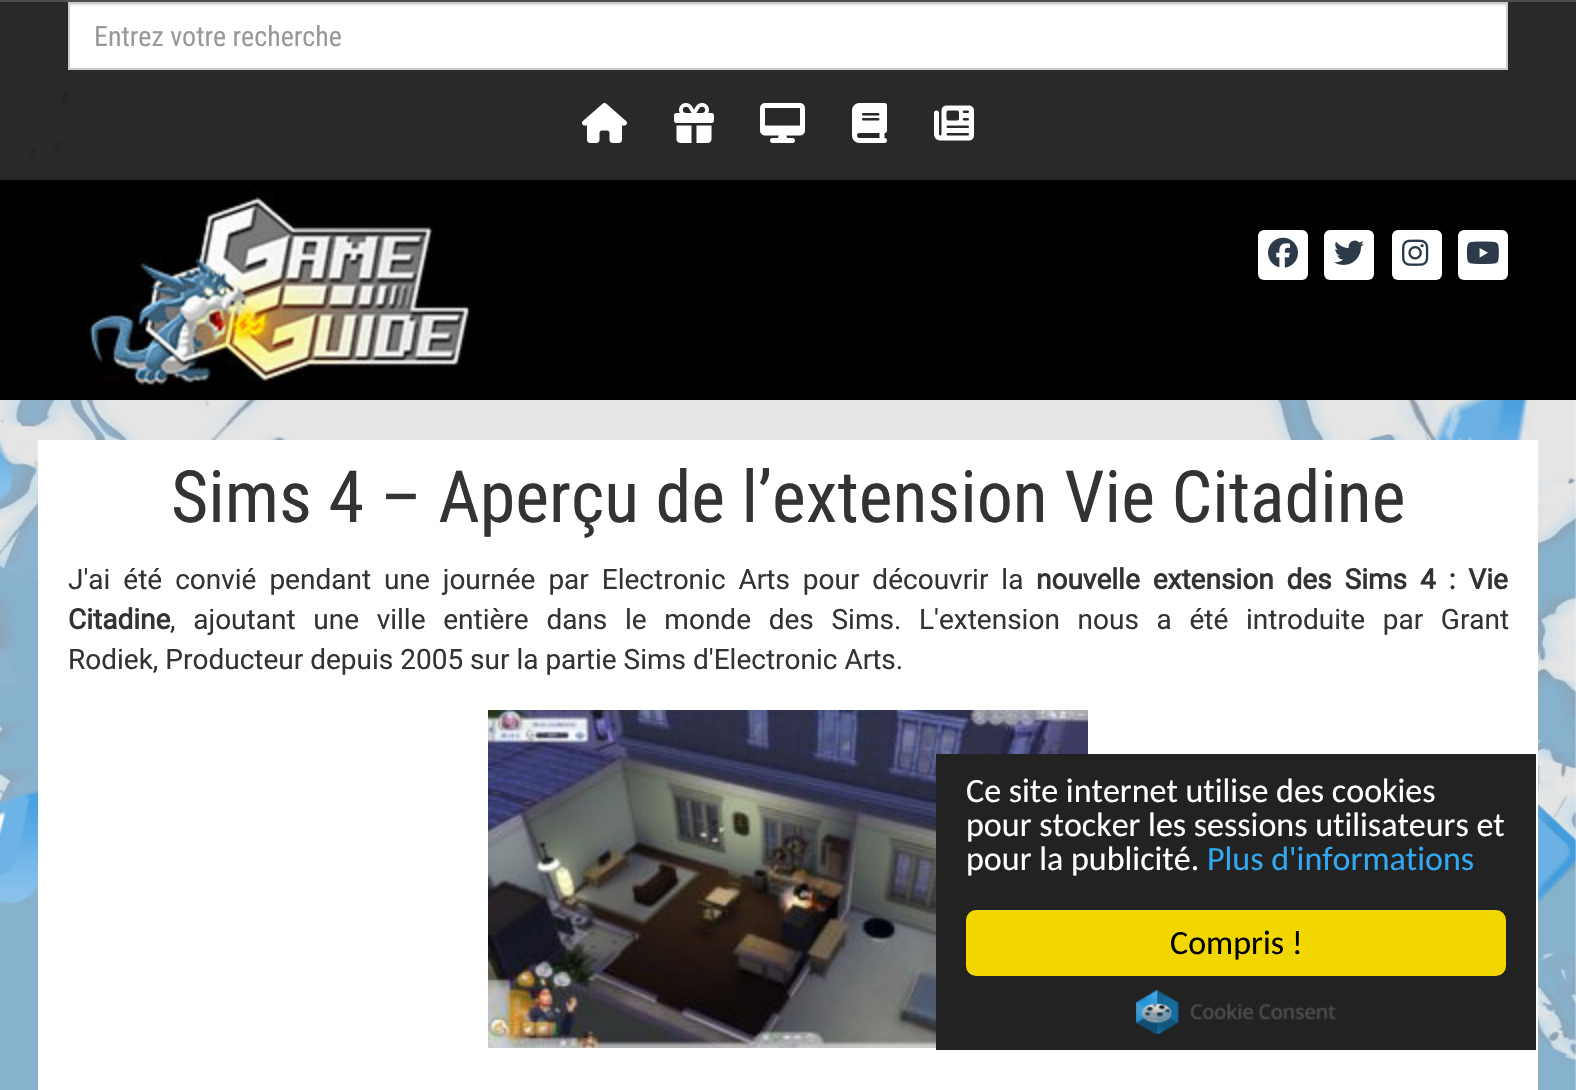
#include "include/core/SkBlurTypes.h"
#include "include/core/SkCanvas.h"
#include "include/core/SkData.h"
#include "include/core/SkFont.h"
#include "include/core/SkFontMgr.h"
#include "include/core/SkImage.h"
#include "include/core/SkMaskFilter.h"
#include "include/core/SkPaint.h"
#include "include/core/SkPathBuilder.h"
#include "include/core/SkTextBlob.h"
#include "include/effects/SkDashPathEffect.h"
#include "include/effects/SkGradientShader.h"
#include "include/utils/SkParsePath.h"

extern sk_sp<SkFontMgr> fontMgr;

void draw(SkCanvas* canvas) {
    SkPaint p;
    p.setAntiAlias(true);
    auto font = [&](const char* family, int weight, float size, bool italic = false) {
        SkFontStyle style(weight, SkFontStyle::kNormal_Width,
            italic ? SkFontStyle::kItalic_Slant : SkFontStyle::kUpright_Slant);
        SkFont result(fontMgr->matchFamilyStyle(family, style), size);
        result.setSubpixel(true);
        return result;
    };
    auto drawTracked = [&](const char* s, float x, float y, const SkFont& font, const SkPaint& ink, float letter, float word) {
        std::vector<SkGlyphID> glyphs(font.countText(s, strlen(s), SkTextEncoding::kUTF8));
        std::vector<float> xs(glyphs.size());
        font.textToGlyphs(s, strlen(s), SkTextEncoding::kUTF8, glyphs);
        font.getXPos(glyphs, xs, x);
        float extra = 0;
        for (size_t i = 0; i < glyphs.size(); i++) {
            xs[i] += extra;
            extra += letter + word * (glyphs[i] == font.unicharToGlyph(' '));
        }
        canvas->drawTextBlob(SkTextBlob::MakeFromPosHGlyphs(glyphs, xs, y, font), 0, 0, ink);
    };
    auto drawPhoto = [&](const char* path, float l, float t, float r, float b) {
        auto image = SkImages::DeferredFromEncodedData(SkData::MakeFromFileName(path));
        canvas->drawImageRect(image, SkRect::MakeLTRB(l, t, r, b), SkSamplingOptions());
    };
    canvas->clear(0xFFFFFFFF);
    drawPhoto("media/1.png", 0, 2, 1576, 1090);
    {
        const struct { float l, t, r, b; SkColor color; } items[] = {
            {0, 2, 1576, 180, 0xEB19191A},
            {0, 0, 1576, 2, 0xFF4D4D52},
            {70, 6, 1506, 68, 0xFFFFFFFF},
            {70, 4, 1506, 6, 0xFFECECEC},
        };
        for (auto [l, t, r, b, color] : items) {
            p.setColor(color);
            canvas->drawRect(SkRect::MakeLTRB(l, t, r, b), p);
        }
    }
    p.setStyle(SkPaint::kStroke_Style);
    p.setStrokeWidth(2);
    p.setColor(0xFFCCCCCC);
    canvas->drawRect(SkRect::MakeLTRB(69, 3, 1507, 69), p);
    auto font1 = font("Roboto Condensed", 400, 28);
    p.setStyle(SkPaint::kFill_Style);
    p.setColor(0xFF999999);
    canvas->drawString("Entrez votre recherche", 94, 46, font1, p);
    drawPhoto("media/2.png", 582, 103, 627, 143);
    drawPhoto("media/3.png", 674, 103, 714, 143);
    drawPhoto("media/4.png", 760, 103, 805, 143);
    drawPhoto("media/5.png", 852, 103, 887, 143);
    drawPhoto("media/6.png", 934, 105, 974, 141);
    p.setColor(0xFF000000);
    canvas->drawRect(SkRect::MakeLTRB(0, 180, 1576, 400), p);
    drawPhoto("media/7.png", 84, 190, 471, 388);
    p.setColor(0xFFFFFFFF);
    canvas->drawRoundRect(SkRect::MakeLTRB(1258, 230, 1308, 280), 6, 6, p);
    drawPhoto("media/8.png", 1268, 237, 1298, 268);
    canvas->drawRoundRect(SkRect::MakeLTRB(1324, 230, 1374, 280), 6, 6, p);
    drawPhoto("media/9.png", 1334, 240, 1364, 265);
    canvas->drawRoundRect(SkRect::MakeLTRB(1392, 230, 1442, 280), 6, 6, p);
    drawPhoto("media/10.png", 1402, 239, 1429, 266);
    canvas->drawRoundRect(SkRect::MakeLTRB(1458, 230, 1508, 280), 6, 6, p);
    drawPhoto("media/11.png", 1466, 241, 1499, 264);
    canvas->drawRect(SkRect::MakeLTRB(38, 440, 1538, 1090), p);
    auto font2 = font("Roboto Condensed", 400, 72);
    p.setColor(0xFF333333);
    canvas->drawString("Sims 4 – Aperçu de l’extension Vie Citadine", 171, 522, font2, p);
    auto font3 = font("Roboto", 400, 28);
    drawTracked("J'ai été convié pendant une journée par Electronic Arts pour découvrir la", 68, 589, font3, p, 0, 6);
    auto font4 = font("Roboto", 700, 28);
    drawTracked("nouvelle extension des Sims 4 : Vie", 1036, 589, font4, p, 0, 6);
    canvas->drawString("Citadine", 68, 629, font4, p);
    drawTracked(", ajoutant une ville entière dans le monde des Sims. L'extension nous a été introduite par Grant", 170, 629, font3, p, 0, 10.75f);
    canvas->drawString("Rodiek, Producteur depuis 2005 sur la partie Sims d'Electronic Arts.", 68, 669, font3, p);
    drawPhoto("media/12.png", 488, 710, 1088, 1048);
    p.setColor(0xFF222222);
    canvas->drawRect(SkRect::MakeLTRB(936, 754, 1536, 1050), p);
    auto font5 = font("Carlito", 400, 34);
    p.setColor(0xFFFFFFFF);
    {
        const struct { const char* s; float x, y; } items[] = {
            {"Ce site internet utilise des cookies", 966, 802},
            {"pour stocker les sessions utilisateurs et", 966, 836},
            {"pour la publicité.", 966, 870},
        };
        for (auto [s, x, y] : items) {
            canvas->drawString(s, x, y, font5, p);
        }
    }
    p.setColor(0xFF31A8F0);
    canvas->drawString("Plus d'informations", 1207, 870, font5, p);
    p.setColor(0xFFF1D600);
    canvas->drawRoundRect(SkRect::MakeLTRB(966, 910, 1506, 976), 10, 10, p);
    p.setColor(0xFF000000);
    canvas->drawString("Compris !", 1170, 954, font5, p);
    drawPhoto("media/13.png", 1136, 990, 1336, 1034);
}
